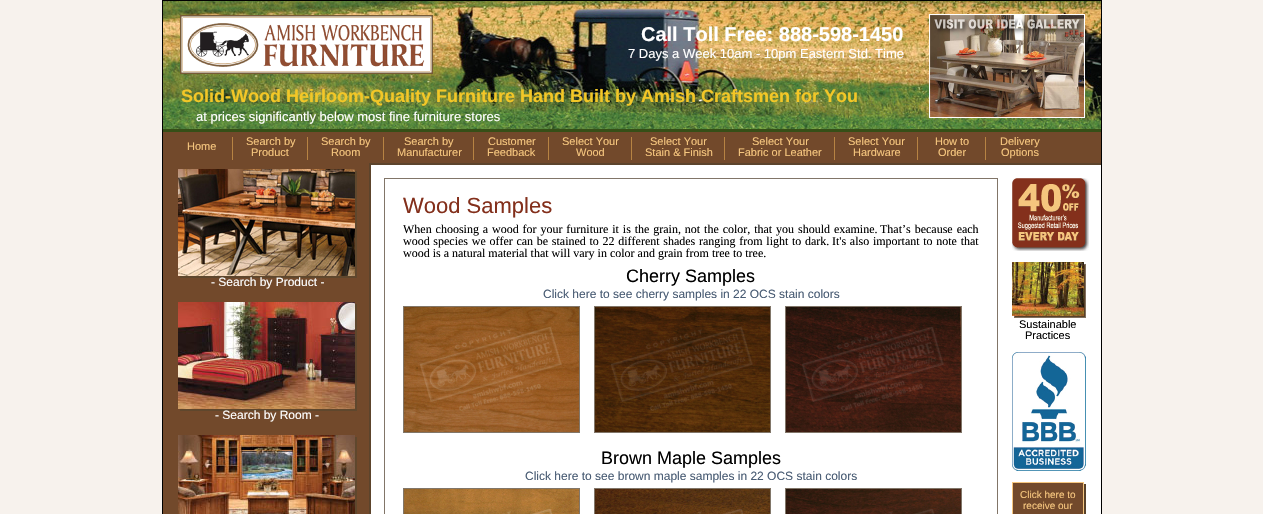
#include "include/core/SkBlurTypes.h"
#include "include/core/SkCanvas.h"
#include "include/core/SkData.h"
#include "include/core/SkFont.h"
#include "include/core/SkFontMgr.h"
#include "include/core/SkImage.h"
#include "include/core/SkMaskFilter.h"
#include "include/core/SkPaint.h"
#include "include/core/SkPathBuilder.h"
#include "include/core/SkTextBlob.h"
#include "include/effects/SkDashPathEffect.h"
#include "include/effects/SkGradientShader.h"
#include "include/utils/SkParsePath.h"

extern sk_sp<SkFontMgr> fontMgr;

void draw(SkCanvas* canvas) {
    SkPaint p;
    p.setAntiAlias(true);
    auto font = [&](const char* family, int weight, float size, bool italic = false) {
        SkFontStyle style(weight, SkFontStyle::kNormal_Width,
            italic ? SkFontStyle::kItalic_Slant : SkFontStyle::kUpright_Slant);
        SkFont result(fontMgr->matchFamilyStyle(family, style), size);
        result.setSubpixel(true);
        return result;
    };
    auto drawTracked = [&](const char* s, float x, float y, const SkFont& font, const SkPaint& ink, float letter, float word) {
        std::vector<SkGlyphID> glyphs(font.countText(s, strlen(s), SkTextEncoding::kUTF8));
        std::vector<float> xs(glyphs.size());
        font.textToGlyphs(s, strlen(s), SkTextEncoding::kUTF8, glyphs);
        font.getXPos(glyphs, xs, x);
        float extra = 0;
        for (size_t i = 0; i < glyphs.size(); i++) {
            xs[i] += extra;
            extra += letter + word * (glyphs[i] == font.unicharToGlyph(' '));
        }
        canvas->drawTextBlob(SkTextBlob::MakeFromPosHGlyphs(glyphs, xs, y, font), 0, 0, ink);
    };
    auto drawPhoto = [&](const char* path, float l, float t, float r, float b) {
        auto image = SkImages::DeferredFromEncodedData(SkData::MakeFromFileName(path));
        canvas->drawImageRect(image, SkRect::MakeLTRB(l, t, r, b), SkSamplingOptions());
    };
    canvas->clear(0xFFF7F2ED);
    p.setColor(0xFFFFFFFF);
    canvas->drawRect(SkRect::MakeLTRB(371, 165, 1101, 514), p);
    p.setStyle(SkPaint::kStroke_Style);
    p.setStrokeWidth(1);
    p.setColor(0xFF000000);
    canvas->drawRect(SkRect::MakeLTRB(162.5f, 0.5f, 1101.5f, 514.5f), p);
    drawPhoto("media/1.png", 163, 1, 1101, 129);
    p.setStyle(SkPaint::kFill_Style);
    p.setColor(0xFF364F17);
    canvas->drawRect(SkRect::MakeLTRB(163, 129, 1101, 132), p);
    drawPhoto("media/2.png", 180, 15, 433, 74);
    auto font1 = font("Liberation Sans", 700, 20);
    p.setColor(0xFFFFFFFF);
    canvas->drawString("Call Toll Free: 888-598-1450", 641, 41, font1, p);
    auto font2 = font("Liberation Sans", 400, 13);
    canvas->drawString("7 Days a Week 10am - 10pm Eastern Std. Time", 628, 58, font2, p);
    p.setStyle(SkPaint::kStroke_Style);
    canvas->drawRect(SkRect::MakeLTRB(929.5f, 14.5f, 1084.5f, 117.5f), p);
    drawPhoto("media/3.png", 930, 15, 1084, 117);
    auto font3 = font("Liberation Sans", 700, 18);
    p.setStyle(SkPaint::kFill_Style);
    p.setColor(0xFFF3C727);
    canvas->drawString("Solid-Wood Heirloom-Quality Furniture Hand Built by Amish Craftsmen for You", 181, 102, font3, p);
    p.setColor(0xFFFFFFFF);
    canvas->drawString("at prices significantly below most fine furniture stores", 196, 121, font2, p);
    p.setColor(0xFF72492B);
    canvas->drawRect(SkRect::MakeLTRB(163, 132, 1101, 163), p);
    auto font4 = font("Liberation Sans", 400, 11);
    p.setColor(0xFFF6C67E);
    canvas->drawString("Home", 187, 150, font4, p);
    p.setColor(0xFFB78343);
    canvas->drawRect(SkRect::MakeLTRB(232, 137, 233, 160), p);
    p.setColor(0xFFF6C67E);
    canvas->drawString("Search by", 246, 145, font4, p);
    canvas->drawString("Product", 251, 156, font4, p);
    p.setColor(0xFFB78343);
    canvas->drawRect(SkRect::MakeLTRB(307, 137, 308, 160), p);
    p.setColor(0xFFF6C67E);
    canvas->drawString("Search by", 321, 145, font4, p);
    canvas->drawString("Room", 331, 156, font4, p);
    p.setColor(0xFFB78343);
    canvas->drawRect(SkRect::MakeLTRB(383, 137, 384, 160), p);
    p.setColor(0xFFF6C67E);
    canvas->drawString("Search by", 404, 145, font4, p);
    canvas->drawString("Manufacturer", 397, 156, font4, p);
    p.setColor(0xFFB78343);
    canvas->drawRect(SkRect::MakeLTRB(473, 137, 474, 160), p);
    p.setColor(0xFFF6C67E);
    canvas->drawString("Customer", 488, 145, font4, p);
    canvas->drawString("Feedback", 487, 156, font4, p);
    p.setColor(0xFFB78343);
    canvas->drawRect(SkRect::MakeLTRB(548, 137, 549, 160), p);
    p.setColor(0xFFF6C67E);
    canvas->drawString("Select Your", 562, 145, font4, p);
    canvas->drawString("Wood", 576, 156, font4, p);
    p.setColor(0xFFB78343);
    canvas->drawRect(SkRect::MakeLTRB(631, 137, 632, 160), p);
    p.setColor(0xFFF6C67E);
    canvas->drawString("Select Your", 650, 145, font4, p);
    canvas->drawString("Stain & Finish", 645, 156, font4, p);
    p.setColor(0xFFB78343);
    canvas->drawRect(SkRect::MakeLTRB(724, 137, 725, 160), p);
    p.setColor(0xFFF6C67E);
    canvas->drawString("Select Your", 752, 145, font4, p);
    canvas->drawString("Fabric or Leather", 738, 156, font4, p);
    p.setColor(0xFFB78343);
    canvas->drawRect(SkRect::MakeLTRB(834, 137, 835, 160), p);
    p.setColor(0xFFF6C67E);
    canvas->drawString("Select Your", 848, 145, font4, p);
    canvas->drawString("Hardware", 853, 156, font4, p);
    p.setColor(0xFFB78343);
    canvas->drawRect(SkRect::MakeLTRB(917, 137, 918, 160), p);
    p.setColor(0xFFF6C67E);
    canvas->drawString("How to", 935, 145, font4, p);
    canvas->drawString("Order", 938, 156, font4, p);
    p.setColor(0xFFB78343);
    canvas->drawRect(SkRect::MakeLTRB(985, 137, 986, 160), p);
    p.setColor(0xFFF6C67E);
    canvas->drawString("Delivery", 1000, 145, font4, p);
    canvas->drawString("Options", 1001, 156, font4, p);
    p.setColor(0xFF72492B);
    canvas->drawRect(SkRect::MakeLTRB(163, 163, 369, 514), p);
    drawPhoto("media/4.png", 178, 169, 357, 278);
    auto font5 = font("Liberation Sans", 400, 12);
    p.setColor(0xFFFFFFFF);
    canvas->drawString("- Search by Product -", 211, 286, font5, p);
    drawPhoto("media/5.png", 178, 302, 357, 411);
    canvas->drawString("- Search by Room -", 215, 419, font5, p);
    drawPhoto("media/6.png", 178, 435, 357, 514);
    p.setColor(0xFF5C442C);
    canvas->drawRect(SkRect::MakeLTRB(369, 163, 1101, 165), p);
    canvas->drawRect(SkRect::MakeLTRB(369, 163, 371, 514), p);
    p.setStyle(SkPaint::kStroke_Style);
    p.setColor(0xFF817568);
    canvas->drawRect(SkRect::MakeLTRB(384.5f, 178.5f, 997.5f, 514.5f), p);
    auto font6 = font("Liberation Sans", 400, 22);
    p.setStyle(SkPaint::kFill_Style);
    p.setColor(0xFF832F1B);
    canvas->drawString("Wood Samples", 403, 213, font6, p);
    auto font7 = font("Liberation Serif", 400, 12);
    p.setColor(0xFF000000);
    drawTracked("When choosing a wood for your furniture it is the grain, not the color, that you should examine.", 403, 233, font7, p, 0, 0.9f);
    drawTracked("That’s because each", 880, 233, font7, p, 0, 1);
    drawTracked("wood species we offer can be stained to 22 different shades ranging from light to dark.", 403, 245, font7, p, 0, 0.7f);
    drawTracked("It's also important to note that", 832, 245, font7, p, 0, 0.7f);
    canvas->drawString("wood is a natural material that will vary in color and grain from tree to tree.", 403, 257, font7, p);
    auto font8 = font("Liberation Sans", 400, 18);
    canvas->drawString("Cherry Samples", 626, 282, font8, p);
    p.setColor(0xFF485B73);
    canvas->drawString("Click here to see cherry samples in 22 OCS stain colors", 543, 298, font5, p);
    p.setStyle(SkPaint::kStroke_Style);
    p.setColor(0xFF817669);
    canvas->drawRect(SkRect::MakeLTRB(403.5f, 306.5f, 579.5f, 432.5f), p);
    drawPhoto("media/7.png", 404, 307, 579, 432);
    canvas->drawRect(SkRect::MakeLTRB(594.5f, 306.5f, 770.5f, 432.5f), p);
    drawPhoto("media/8.png", 595, 307, 770, 432);
    canvas->drawRect(SkRect::MakeLTRB(785.5f, 306.5f, 961.5f, 432.5f), p);
    drawPhoto("media/9.png", 786, 307, 961, 432);
    p.setStyle(SkPaint::kFill_Style);
    p.setColor(0xFF000000);
    canvas->drawString("Brown Maple Samples", 601, 464, font8, p);
    p.setColor(0xFF485B73);
    canvas->drawString("Click here to see brown maple samples in 22 OCS stain colors", 525, 480, font5, p);
    p.setStyle(SkPaint::kStroke_Style);
    p.setColor(0xFF817669);
    canvas->drawRect(SkRect::MakeLTRB(403.5f, 488.5f, 579.5f, 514.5f), p);
    drawPhoto("media/10.png", 404, 489, 579, 514);
    canvas->drawRect(SkRect::MakeLTRB(594.5f, 488.5f, 770.5f, 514.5f), p);
    drawPhoto("media/11.png", 595, 489, 770, 514);
    canvas->drawRect(SkRect::MakeLTRB(785.5f, 488.5f, 961.5f, 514.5f), p);
    drawPhoto("media/12.png", 786, 489, 961, 514);
    drawPhoto("media/13.png", 1012, 178, 1089, 251);
    drawPhoto("media/14.png", 1012, 262, 1086, 318);
    p.setStyle(SkPaint::kFill_Style);
    p.setColor(0xFF000000);
    canvas->drawString("Sustainable", 1019, 328, font4, p);
    canvas->drawString("Practices", 1025, 339, font4, p);
    drawPhoto("media/15.png", 1012, 352, 1086, 471);
    p.setColor(0xFF584129);
    canvas->drawRect(SkRect::MakeLTRB(1084, 484, 1086, 514), p);
    p.setColor(0xFF72492B);
    canvas->drawRect(SkRect::MakeLTRB(1012.5f, 482.5f, 1083.5f, 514.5f), p);
    p.setStyle(SkPaint::kStroke_Style);
    p.setColor(0xFFF6C67E);
    canvas->drawRect(SkRect::MakeLTRB(1012.5f, 482.5f, 1083.5f, 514.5f), p);
    auto font9 = font("Liberation Sans", 400, 10);
    p.setStyle(SkPaint::kFill_Style);
    canvas->drawString("Click here to", 1020, 498, font9, p);
    canvas->drawString("receive our", 1023, 509, font9, p);
}
